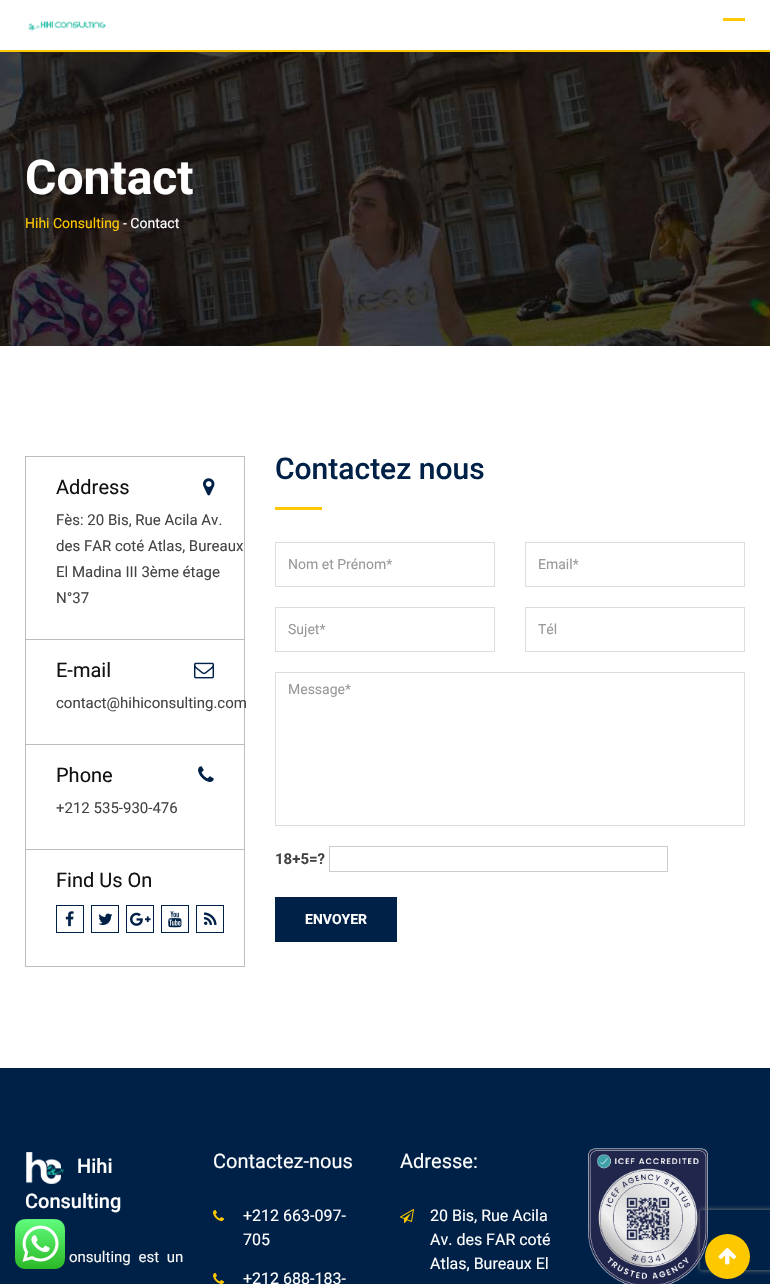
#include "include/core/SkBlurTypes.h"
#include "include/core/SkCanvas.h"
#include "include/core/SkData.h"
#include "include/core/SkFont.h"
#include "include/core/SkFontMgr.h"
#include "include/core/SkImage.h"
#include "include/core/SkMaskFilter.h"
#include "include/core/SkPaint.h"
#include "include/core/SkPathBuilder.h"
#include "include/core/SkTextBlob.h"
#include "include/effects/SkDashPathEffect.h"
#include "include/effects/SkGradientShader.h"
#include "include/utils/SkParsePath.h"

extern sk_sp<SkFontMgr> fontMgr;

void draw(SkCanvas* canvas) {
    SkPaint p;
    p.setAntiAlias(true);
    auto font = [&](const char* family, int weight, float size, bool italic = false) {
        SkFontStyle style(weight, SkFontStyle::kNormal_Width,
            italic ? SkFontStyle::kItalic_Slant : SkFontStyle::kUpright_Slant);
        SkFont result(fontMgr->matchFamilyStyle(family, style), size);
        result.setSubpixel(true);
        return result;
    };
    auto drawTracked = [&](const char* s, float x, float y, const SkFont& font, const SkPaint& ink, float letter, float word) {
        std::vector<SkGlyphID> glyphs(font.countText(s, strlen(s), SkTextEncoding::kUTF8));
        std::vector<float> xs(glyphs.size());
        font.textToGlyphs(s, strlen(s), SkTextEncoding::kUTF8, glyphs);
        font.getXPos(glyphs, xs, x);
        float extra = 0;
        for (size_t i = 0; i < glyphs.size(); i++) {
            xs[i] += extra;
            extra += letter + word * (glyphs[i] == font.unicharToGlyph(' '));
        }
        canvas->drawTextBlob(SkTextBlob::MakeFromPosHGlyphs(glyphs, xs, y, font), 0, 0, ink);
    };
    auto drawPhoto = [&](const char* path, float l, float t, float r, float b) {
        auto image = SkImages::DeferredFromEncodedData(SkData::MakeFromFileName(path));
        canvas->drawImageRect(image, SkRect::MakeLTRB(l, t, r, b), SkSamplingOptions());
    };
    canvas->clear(0xFFFFFFFF);
    p.setColor(0xFFFDC800);
    canvas->drawRect(SkRect::MakeLTRB(0, 50, 770, 52), p);
    canvas->drawRect(SkRect::MakeLTRB(723, 18, 745, 21), p);
    drawPhoto("media/1.png", 28, 20, 106, 31);
    drawPhoto("media/2.png", 0, 52, 770, 346);
    auto font1 = font("Roboto", 700, 48);
    p.setColor(0xFFFFFFFF);
    canvas->drawString("Contact", 25, 194, font1, p);
    auto font2 = font("Roboto", 400, 14);
    p.setColor(0xFFFDC800);
    canvas->drawString("Hihi Consulting", 25, 228, font2, p);
    p.setColor(0xFFFFFFFF);
    canvas->drawString("- Contact", 123, 228, font2, p);
    p.setStyle(SkPaint::kStroke_Style);
    p.setStrokeWidth(1);
    p.setColor(0xFFBDBDBD);
    canvas->drawRect(SkRect::MakeLTRB(25.5f, 456.5f, 244.5f, 966.5f), p);
    p.setStyle(SkPaint::kFill_Style);
    canvas->drawRect(SkRect::MakeLTRB(26, 639, 244, 640), p);
    auto font3 = font("Roboto", 400, 20);
    p.setColor(0xFF111111);
    canvas->drawString("Address", 56, 494, font3, p);
    drawPhoto("media/3.png", 203, 478, 215, 496);
    auto font4 = font("Roboto", 400, 15);
    p.setColor(0xFF444444);
    {
        const struct { const char* s; float x, y; } items[] = {
            {"Fès: 20 Bis, Rue Acila Av.", 56, 525},
            {"des FAR coté Atlas, Bureaux", 56, 551},
            {"El Madina III 3ème étage", 56, 577},
            {"N°37", 56, 603},
        };
        for (auto [s, x, y] : items) {
            canvas->drawString(s, x, y, font4, p);
        }
    }
    p.setColor(0xFFBDBDBD);
    canvas->drawRect(SkRect::MakeLTRB(26, 744, 244, 745), p);
    p.setColor(0xFF111111);
    canvas->drawString("E-mail", 56, 677, font3, p);
    drawPhoto("media/4.png", 194, 662, 214, 679);
    p.setColor(0xFF444444);
    canvas->drawString("contact@hihiconsulting.com", 56, 708, font4, p);
    p.setColor(0xFFBDBDBD);
    canvas->drawRect(SkRect::MakeLTRB(26, 849, 244, 850), p);
    p.setColor(0xFF111111);
    canvas->drawString("Phone", 56, 782, font3, p);
    drawPhoto("media/5.png", 198, 766, 214, 782);
    p.setColor(0xFF444444);
    canvas->drawString("+212 535-930-476", 56, 813, font4, p);
    p.setColor(0xFF111111);
    canvas->drawString("Find Us On", 56, 887, font3, p);
    p.setStyle(SkPaint::kStroke_Style);
    p.setColor(0xFF002147);
    canvas->drawRect(SkRect::MakeLTRB(56.5f, 905.5f, 83.5f, 932.5f), p);
    drawPhoto("media/6.png", 65, 911, 74, 927);
    canvas->drawRect(SkRect::MakeLTRB(91.5f, 905.5f, 118.5f, 932.5f), p);
    drawPhoto("media/7.png", 98, 913, 113, 925);
    canvas->drawRect(SkRect::MakeLTRB(126.5f, 905.5f, 153.5f, 932.5f), p);
    drawPhoto("media/8.png", 130, 912, 151, 926);
    canvas->drawRect(SkRect::MakeLTRB(161.5f, 905.5f, 188.5f, 932.5f), p);
    drawPhoto("media/9.png", 168, 911, 182, 928);
    canvas->drawRect(SkRect::MakeLTRB(196.5f, 905.5f, 223.5f, 932.5f), p);
    drawPhoto("media/10.png", 204, 912, 217, 925);
    auto font5 = font("Roboto", 500, 30);
    p.setStyle(SkPaint::kFill_Style);
    canvas->drawString("Contactez nous", 275, 479, font5, p);
    p.setColor(0xFFFDC800);
    canvas->drawRect(SkRect::MakeLTRB(275, 507, 322, 510), p);
    p.setStyle(SkPaint::kStroke_Style);
    p.setColor(0xFFDDDDDD);
    canvas->drawRect(SkRect::MakeLTRB(275.5f, 542.5f, 494.5f, 586.5f), p);
    p.setStyle(SkPaint::kFill_Style);
    p.setColor(0xFF999999);
    canvas->drawString("Nom et Prénom*", 288, 569, font2, p);
    p.setStyle(SkPaint::kStroke_Style);
    p.setColor(0xFFDDDDDD);
    canvas->drawRect(SkRect::MakeLTRB(525.5f, 542.5f, 744.5f, 586.5f), p);
    p.setStyle(SkPaint::kFill_Style);
    p.setColor(0xFF999999);
    canvas->drawString("Email*", 538, 569, font2, p);
    p.setStyle(SkPaint::kStroke_Style);
    p.setColor(0xFFDDDDDD);
    canvas->drawRect(SkRect::MakeLTRB(275.5f, 607.5f, 494.5f, 651.5f), p);
    p.setStyle(SkPaint::kFill_Style);
    p.setColor(0xFF999999);
    canvas->drawString("Sujet*", 288, 634, font2, p);
    p.setStyle(SkPaint::kStroke_Style);
    p.setColor(0xFFDDDDDD);
    canvas->drawRect(SkRect::MakeLTRB(525.5f, 607.5f, 744.5f, 651.5f), p);
    p.setStyle(SkPaint::kFill_Style);
    p.setColor(0xFF999999);
    canvas->drawString("Tél", 538, 634, font2, p);
    p.setStyle(SkPaint::kStroke_Style);
    p.setColor(0xFFDDDDDD);
    canvas->drawRect(SkRect::MakeLTRB(275.5f, 672.5f, 744.5f, 825.5f), p);
    p.setStyle(SkPaint::kFill_Style);
    p.setColor(0xFF999999);
    canvas->drawString("Message*", 288, 694, font2, p);
    auto font6 = font("Roboto", 700, 15);
    p.setColor(0xFF444444);
    canvas->drawString("18+5=?", 275, 864, font6, p);
    p.setStyle(SkPaint::kStroke_Style);
    p.setColor(0xFFCCCCCC);
    canvas->drawRect(SkRect::MakeLTRB(329.5f, 846.5f, 667.5f, 871.5f), p);
    p.setStyle(SkPaint::kFill_Style);
    p.setColor(0xFF002147);
    canvas->drawRect(SkRect::MakeLTRB(275, 897, 397, 942), p);
    auto font7 = font("Roboto", 700, 14);
    p.setColor(0xFFFFFFFF);
    canvas->drawString("ENVOYER", 305, 924, font7, p);
    p.setColor(0xFF002147);
    canvas->drawRect(SkRect::MakeLTRB(0, 1068, 770, 1284), p);
    drawPhoto("media/11.png", 26, 1152, 64, 1184);
    auto font8 = font("Roboto", 500, 20);
    p.setColor(0xFFFFFFFF);
    canvas->drawString("Hihi", 77, 1173, font8, p);
    canvas->drawString("Consulting", 25, 1208, font8, p);
    p.setColor(0xFFF5F5F5);
    drawTracked("onsulting est un", 69, 1262, font4, p, 0, 4);
    p.setColor(0xFFFFFFFF);
    canvas->drawString("Contactez-nous", 213, 1168, font3, p);
    drawPhoto("media/12.png", 213, 1210, 224, 1221);
    auto font9 = font("Roboto", 400, 16);
    canvas->drawString("+212 663-097-", 243, 1221, font9, p);
    canvas->drawString("705", 243, 1245, font9, p);
    drawPhoto("media/12.png", 213, 1273, 224, 1284);
    canvas->drawString("+212 688-183-", 243, 1284, font9, p);
    canvas->drawString("Adresse:", 400, 1168, font3, p);
    drawPhoto("media/13.png", 400, 1209, 414, 1223);
    {
        const struct { const char* s; float x, y; } items[] = {
            {"20 Bis, Rue Acila", 430, 1221},
            {"Av. des FAR coté", 430, 1245},
            {"Atlas, Bureaux El", 430, 1269},
        };
        for (auto [s, x, y] : items) {
            canvas->drawString(s, x, y, font9, p);
        }
    }
    drawPhoto("media/14.png", 588, 1148, 708, 1284);
    canvas->save();
    canvas->clipPath(SkPathBuilder(SkPathFillType::kEvenOdd).moveTo(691, 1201).lineTo(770, 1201).lineTo(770, 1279).lineTo(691, 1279).close().moveTo(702, 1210).lineTo(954, 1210).cubicTo(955, 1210, 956, 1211, 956, 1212).lineTo(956, 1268).cubicTo(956, 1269, 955, 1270, 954, 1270).lineTo(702, 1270).cubicTo(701, 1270, 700, 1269, 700, 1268).lineTo(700, 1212).cubicTo(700, 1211, 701, 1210, 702, 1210).close().detach(), true);
    p.setColor(0xFF808080);
    p.setMaskFilter(SkMaskFilter::MakeBlur(kNormal_SkBlurStyle, 2.5f));
    canvas->drawRoundRect(SkRect::MakeLTRB(700, 1210, 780, 1270), 2, 2, p);
    p.setMaskFilter(nullptr);
    canvas->restore();
    drawPhoto("media/15.png", 15, 1219, 65, 1269);
    p.setColor(0xFFFDC800);
    canvas->drawCircle(727.5f, 1256.5f, 22.5f, p);
    drawPhoto("media/16.png", 718, 1248, 736, 1265);
}
